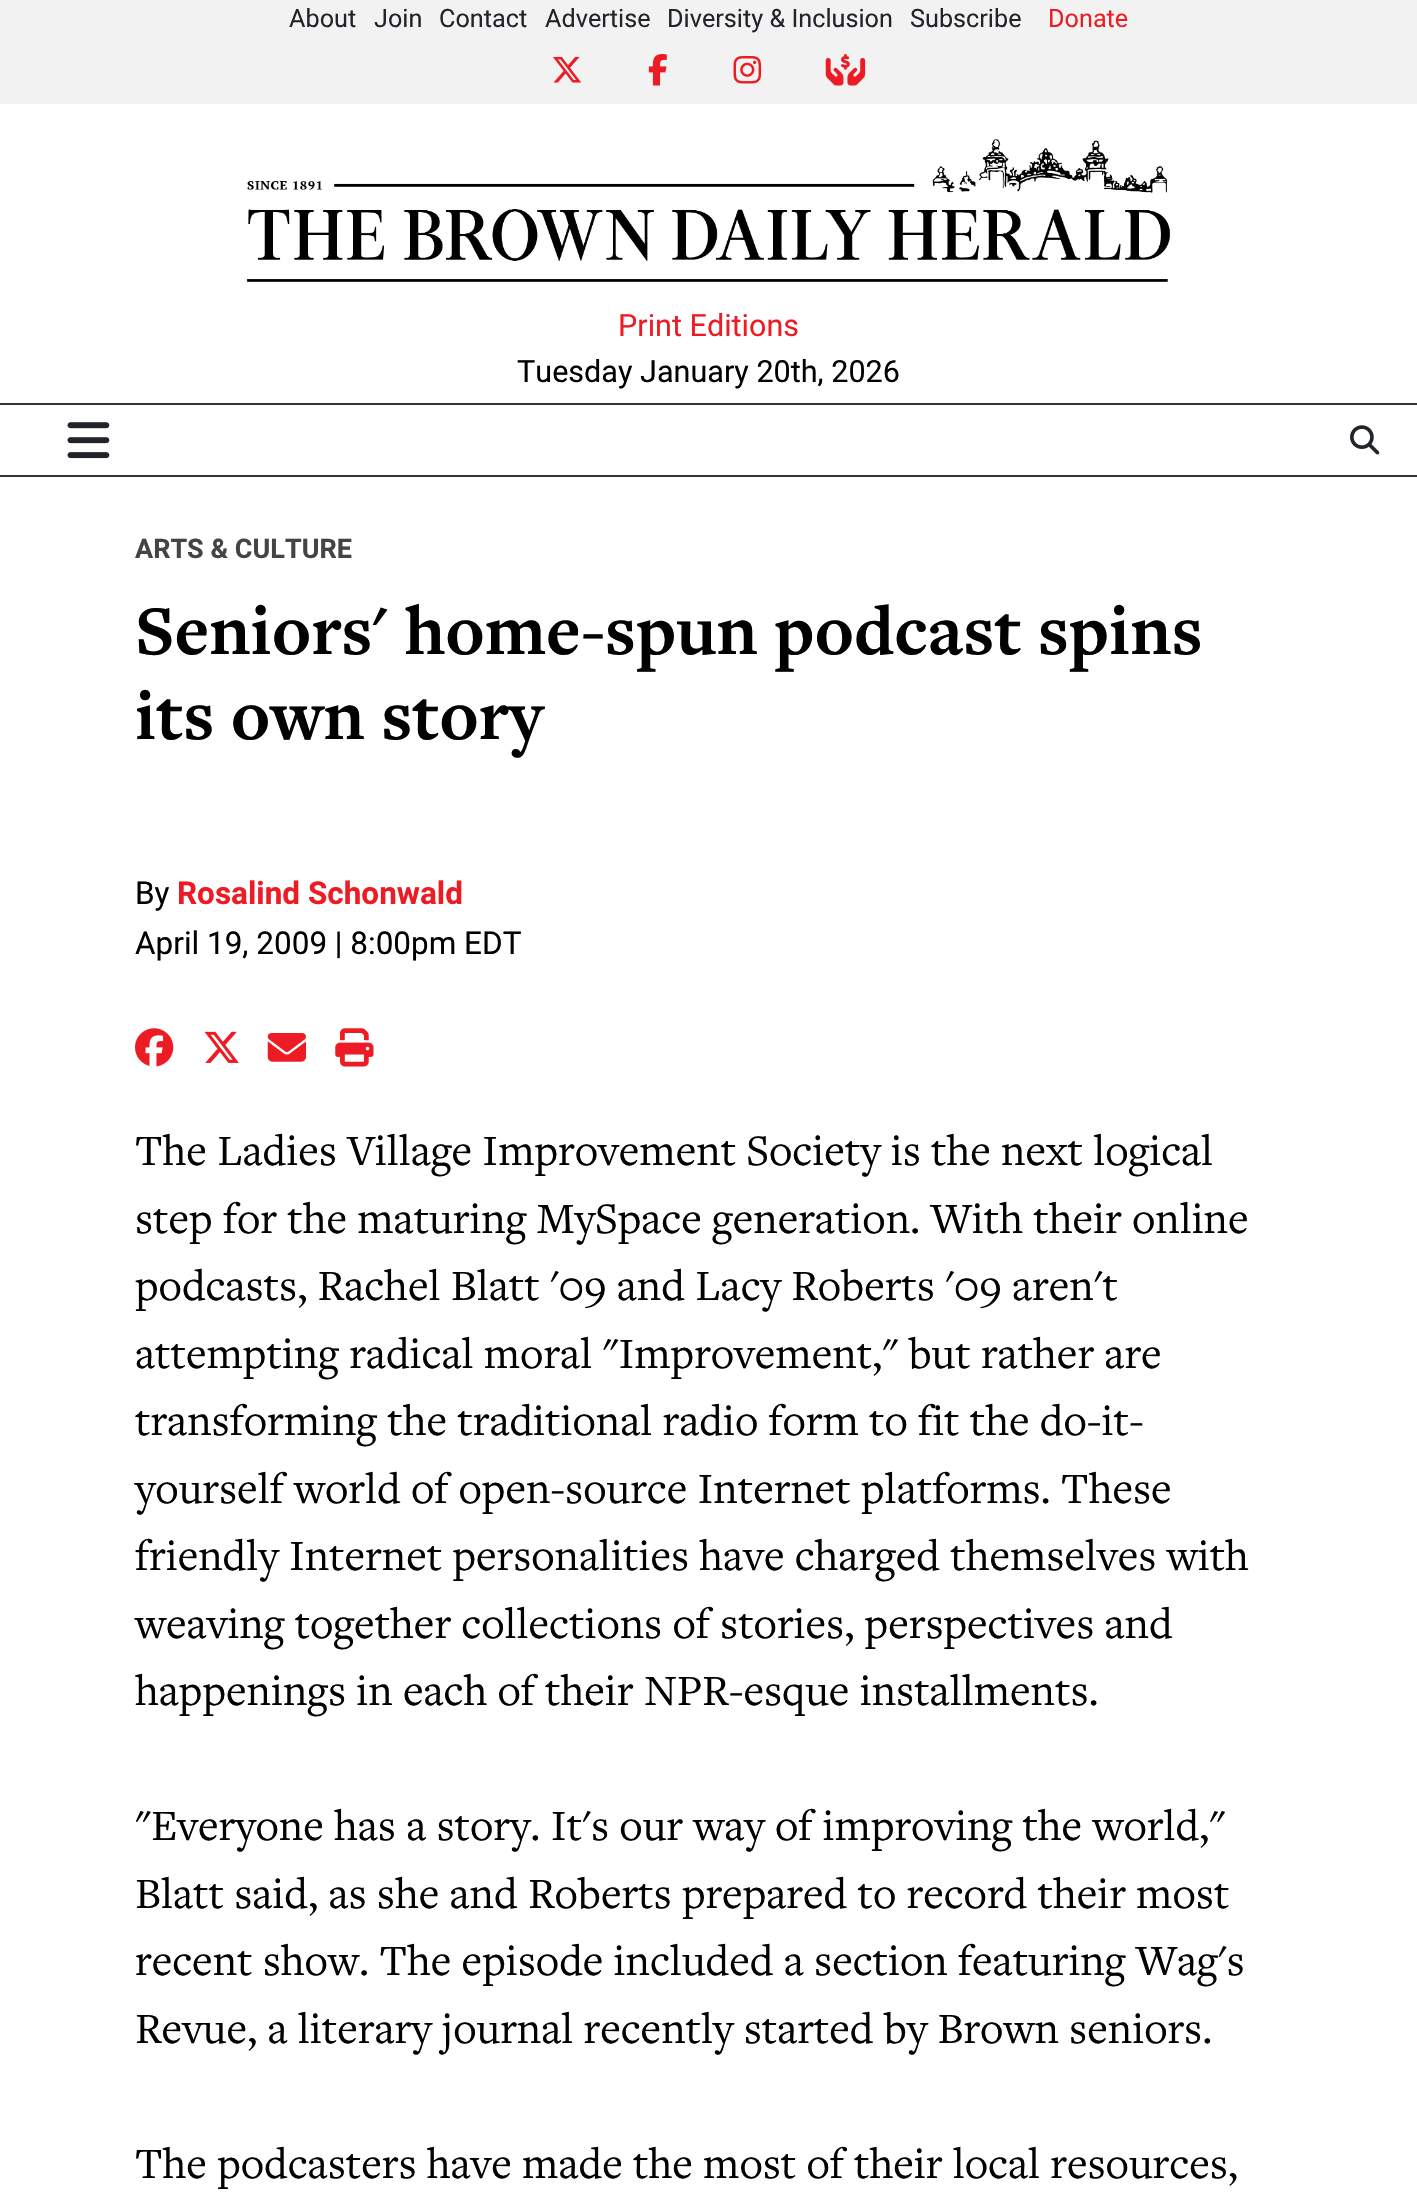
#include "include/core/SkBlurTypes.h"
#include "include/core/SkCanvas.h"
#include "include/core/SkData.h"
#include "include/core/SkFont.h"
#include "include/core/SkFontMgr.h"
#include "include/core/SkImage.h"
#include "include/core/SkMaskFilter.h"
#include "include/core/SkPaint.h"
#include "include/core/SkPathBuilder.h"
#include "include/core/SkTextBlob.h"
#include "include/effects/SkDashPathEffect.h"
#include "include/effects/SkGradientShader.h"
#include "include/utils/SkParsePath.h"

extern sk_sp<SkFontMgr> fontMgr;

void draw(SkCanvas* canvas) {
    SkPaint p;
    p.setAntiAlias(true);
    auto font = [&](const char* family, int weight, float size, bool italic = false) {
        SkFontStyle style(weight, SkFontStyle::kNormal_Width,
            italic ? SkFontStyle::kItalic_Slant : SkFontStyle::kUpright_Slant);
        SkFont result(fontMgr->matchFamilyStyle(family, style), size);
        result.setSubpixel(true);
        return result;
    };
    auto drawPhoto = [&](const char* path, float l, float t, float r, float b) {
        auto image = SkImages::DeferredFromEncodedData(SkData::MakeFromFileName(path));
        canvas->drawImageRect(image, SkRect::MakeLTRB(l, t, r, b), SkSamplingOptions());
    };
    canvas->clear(0xFFFFFFFF);
    p.setColor(0xFFF2F2F2);
    canvas->drawRect(SkRect::MakeLTRB(0, 0, 1417, 104), p);
    auto font1 = font("Roboto", 400, 25.25f);
    p.setColor(0xFF212529);
    {
        const struct { const char* s; float x, y; } items[] = {
            {"About", 289, 27},
            {"Join", 374, 27},
            {"Contact", 439, 27},
            {"Advertise", 545, 27},
            {"Diversity & Inclusion", 667, 27},
            {"Subscribe", 910, 27},
        };
        for (auto [s, x, y] : items) {
            canvas->drawString(s, x, y, font1, p);
        }
    }
    p.setColor(0xFFED1C24);
    canvas->drawString("Donate", 1048, 27, font1, p);
    drawPhoto("media/1.png", 553, 56, 582, 83);
    drawPhoto("media/2.png", 648, 54, 667, 86);
    drawPhoto("media/3.png", 733, 55, 762, 84);
    drawPhoto("media/4.png", 825, 54, 866, 86);
    drawPhoto("media/5.png", 246, 139, 1171, 282);
    auto font2 = font("Roboto", 400, 30.6f);
    canvas->drawString("Print Editions", 618, 336, font2, p);
    p.setColor(0xFF020100);
    canvas->drawString("Tuesday January 20th, 2026", 517, 382, font2, p);
    p.setColor(0xFF333333);
    canvas->drawRect(SkRect::MakeLTRB(0, 403, 1417, 405), p);
    canvas->drawRect(SkRect::MakeLTRB(0, 475, 1417, 477), p);
    drawPhoto("media/6.png", 67, 422, 110, 459);
    drawPhoto("media/7.png", 1350, 425, 1380, 455);
    auto font3 = font("Roboto", 700, 27);
    p.setColor(0xFF444444);
    canvas->drawString("ARTS & CULTURE", 135, 558, font3, p);
    auto font4 = font("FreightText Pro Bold", 700, 72);
    p.setColor(0xFF020100);
    canvas->drawString("Seniors' home-spun podcast spins", 135, 654, font4, p);
    canvas->drawString("its own story", 135, 739, font4, p);
    auto font5 = font("Roboto", 400, 31.5f);
    canvas->drawString("By", 135, 904, font5, p);
    auto font6 = font("Roboto", 700, 31.5f);
    p.setColor(0xFFED1C24);
    canvas->drawString("Rosalind Schonwald", 177, 904, font6, p);
    p.setColor(0xFF020100);
    canvas->drawString("April 19, 2009 | 8:00pm EDT", 135, 954, font5, p);
    drawPhoto("media/8.png", 135, 1028, 174, 1067);
    drawPhoto("media/9.png", 204, 1031, 239, 1063);
    drawPhoto("media/10.png", 267, 1033, 306, 1062);
    drawPhoto("media/11.png", 335, 1028, 374, 1067);
    auto font7 = font("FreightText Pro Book", 400, 45);
    {
        const struct { const char* s; float x, y; } items[] = {
            {"The Ladies Village Improvement Society is the next logical", 135, 1165},
            {"step for the maturing MySpace generation. With their online", 135, 1233},
            {"podcasts, Rachel Blatt '09 and Lacy Roberts '09 aren't", 135, 1300},
            {"attempting radical moral \"Improvement,\" but rather are", 135, 1368},
            {"transforming the traditional radio form to fit the do-it-", 135, 1435},
            {"yourself world of open-source Internet platforms. These", 135, 1503},
            {"friendly Internet personalities have charged themselves with", 135, 1570},
            {"weaving together collections of stories, perspectives and", 135, 1638},
            {"happenings in each of their NPR-esque installments.", 135, 1705},
            {"\"Everyone has a story. It's our way of improving the world,\"", 135, 1840},
            {"Blatt said, as she and Roberts prepared to record their most", 135, 1908},
            {"recent show. The episode included a section featuring Wag's", 135, 1975},
            {"Revue, a literary journal recently started by Brown seniors.", 135, 2043},
            {"The podcasters have made the most of their local resources,", 135, 2178},
        };
        for (auto [s, x, y] : items) {
            canvas->drawString(s, x, y, font7, p);
        }
    }
}
